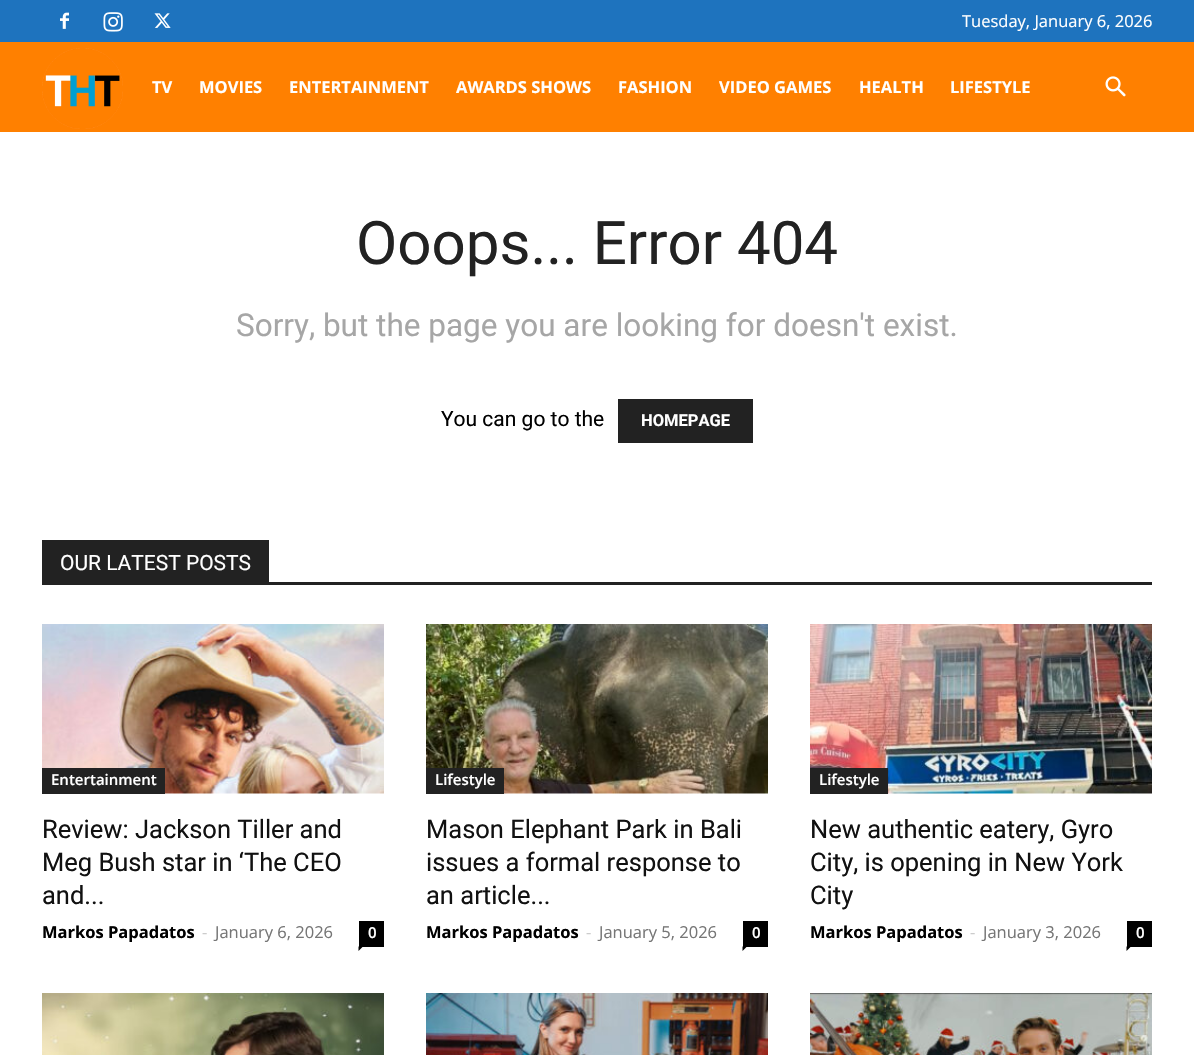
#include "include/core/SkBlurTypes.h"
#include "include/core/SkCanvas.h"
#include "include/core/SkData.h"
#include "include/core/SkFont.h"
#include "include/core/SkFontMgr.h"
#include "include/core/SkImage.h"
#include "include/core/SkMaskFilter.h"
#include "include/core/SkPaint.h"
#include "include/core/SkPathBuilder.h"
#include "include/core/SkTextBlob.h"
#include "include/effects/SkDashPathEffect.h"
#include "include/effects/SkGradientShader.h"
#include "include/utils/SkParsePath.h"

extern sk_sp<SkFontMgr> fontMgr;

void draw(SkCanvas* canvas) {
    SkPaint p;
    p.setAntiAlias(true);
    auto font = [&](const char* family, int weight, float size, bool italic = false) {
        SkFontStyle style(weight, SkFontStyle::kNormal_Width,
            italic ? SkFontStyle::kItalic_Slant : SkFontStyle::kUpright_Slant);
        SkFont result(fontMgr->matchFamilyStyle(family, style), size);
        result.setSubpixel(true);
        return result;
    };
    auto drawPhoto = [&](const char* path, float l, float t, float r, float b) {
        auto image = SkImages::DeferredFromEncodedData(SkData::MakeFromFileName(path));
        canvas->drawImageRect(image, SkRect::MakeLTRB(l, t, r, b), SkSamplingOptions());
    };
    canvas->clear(0xFFFFFFFF);
    p.setColor(0xFF1E73BE);
    canvas->drawRect(SkRect::MakeLTRB(0, 0, 1194, 42), p);
    drawPhoto("media/1.png", 60, 12, 69, 29);
    drawPhoto("media/2.png", 103, 12, 123, 32);
    drawPhoto("media/3.png", 154, 13, 171, 28);
    auto font1 = font("Open Sans", 400, 16.5f);
    p.setColor(0xFFFFFFFF);
    canvas->drawString("Tuesday, January 6, 2026", 962, 27, font1, p);
    p.setColor(0xFFFF8000);
    canvas->drawRect(SkRect::MakeLTRB(0, 42, 1194, 132), p);
    drawPhoto("media/4.png", 42, 48, 123, 129);
    auto font2 = font("Open Sans", 700, 16.5f);
    p.setColor(0xFFFFFFFF);
    {
        const struct { const char* s; float x, y; } items[] = {
            {"TV", 152, 93},
            {"MOVIES", 199, 93},
            {"ENTERTAINMENT", 289, 93},
            {"AWARDS SHOWS", 456, 93},
            {"FASHION", 618, 93},
            {"VIDEO GAMES", 719, 93},
            {"HEALTH", 859, 93},
            {"LIFESTYLE", 950, 93},
        };
        for (auto [s, x, y] : items) {
            canvas->drawString(s, x, y, font2, p);
        }
    }
    drawPhoto("media/5.png", 1105, 76, 1126, 97);
    auto font3 = font("Roboto", 400, 60);
    p.setColor(0xFF222222);
    canvas->drawString("Ooops... Error 404", 356, 264, font3, p);
    auto font4 = font("Roboto", 400, 31.5f);
    p.setColor(0xFFA6A6A6);
    canvas->drawString("Sorry, but the page you are looking for doesn't exist.", 236, 336, font4, p);
    auto font5 = font("Roboto", 400, 21);
    p.setColor(0xFF000000);
    canvas->drawString("You can go to the", 441, 426, font5, p);
    p.setColor(0xFF222222);
    canvas->drawRect(SkRect::MakeLTRB(618, 399, 753, 443), p);
    auto font6 = font("Roboto", 700, 16.5f);
    p.setColor(0xFFFFFFFF);
    canvas->drawString("HOMEPAGE", 641, 426, font6, p);
    p.setColor(0xFF222222);
    canvas->drawRect(SkRect::MakeLTRB(42, 582, 1152, 585), p);
    canvas->drawRect(SkRect::MakeLTRB(42, 540, 269, 582), p);
    p.setColor(0xFFFFFFFF);
    canvas->drawString("OUR LATEST POSTS", 60, 570, font5, p);
    drawPhoto("media/6.png", 42, 624, 384, 794);
    p.setColor(0xFF222222);
    canvas->drawRect(SkRect::MakeLTRB(42, 768, 165, 794), p);
    auto font7 = font("Open Sans", 600, 15);
    p.setColor(0xFFFFFFFF);
    canvas->drawString("Entertainment", 51, 785, font7, p);
    auto font8 = font("Roboto", 400, 25.5f);
    p.setColor(0xFF111111);
    {
        const struct { const char* s; float x, y; } items[] = {
            {"Review: Jackson Tiller and", 42, 838},
            {"Meg Bush star in ‘The CEO", 42, 871},
            {"and...", 42, 904},
        };
        for (auto [s, x, y] : items) {
            canvas->drawString(s, x, y, font8, p);
        }
    }
    p.setColor(0xFF000000);
    canvas->drawString("Markos Papadatos", 42, 938, font2, p);
    p.setColor(0xFFCCCCCC);
    canvas->drawString("-", 202, 938, font1, p);
    p.setColor(0xFF767676);
    canvas->drawString("January 6, 2026", 215, 938, font1, p);
    p.setColor(0xFF000000);
    canvas->drawRect(SkRect::MakeLTRB(359, 921, 384, 947), p);
    p.setColor(0xFFFFFFFF);
    canvas->drawString("0", 368, 938, font7, p);
    p.setColor(0xFF000000);
    canvas->drawPath(SkPathBuilder().moveTo(358.5f, 946.5f).lineTo(363, 946.5f).lineTo(358.5f, 951).close().detach(), p);
    drawPhoto("media/7.png", 426, 624, 768, 794);
    p.setColor(0xFF222222);
    canvas->drawRect(SkRect::MakeLTRB(426, 768, 504, 794), p);
    p.setColor(0xFFFFFFFF);
    canvas->drawString("Lifestyle", 435, 785, font7, p);
    p.setColor(0xFF111111);
    {
        const struct { const char* s; float x, y; } items[] = {
            {"Mason Elephant Park in Bali", 426, 838},
            {"issues a formal response to", 426, 871},
            {"an article...", 426, 904},
        };
        for (auto [s, x, y] : items) {
            canvas->drawString(s, x, y, font8, p);
        }
    }
    p.setColor(0xFF000000);
    canvas->drawString("Markos Papadatos", 426, 938, font2, p);
    p.setColor(0xFFCCCCCC);
    canvas->drawString("-", 586, 938, font1, p);
    p.setColor(0xFF767676);
    canvas->drawString("January 5, 2026", 599, 938, font1, p);
    p.setColor(0xFF000000);
    canvas->drawRect(SkRect::MakeLTRB(743, 921, 768, 947), p);
    p.setColor(0xFFFFFFFF);
    canvas->drawString("0", 752, 938, font7, p);
    p.setColor(0xFF000000);
    canvas->drawPath(SkPathBuilder().moveTo(742.5f, 946.5f).lineTo(747, 946.5f).lineTo(742.5f, 951).close().detach(), p);
    drawPhoto("media/8.png", 810, 624, 1152, 794);
    p.setColor(0xFF222222);
    canvas->drawRect(SkRect::MakeLTRB(810, 768, 888, 794), p);
    p.setColor(0xFFFFFFFF);
    canvas->drawString("Lifestyle", 819, 785, font7, p);
    p.setColor(0xFF111111);
    {
        const struct { const char* s; float x, y; } items[] = {
            {"New authentic eatery, Gyro", 810, 838},
            {"City, is opening in New York", 810, 871},
            {"City", 810, 904},
        };
        for (auto [s, x, y] : items) {
            canvas->drawString(s, x, y, font8, p);
        }
    }
    p.setColor(0xFF000000);
    canvas->drawString("Markos Papadatos", 810, 938, font2, p);
    p.setColor(0xFFCCCCCC);
    canvas->drawString("-", 970, 938, font1, p);
    p.setColor(0xFF767676);
    canvas->drawString("January 3, 2026", 983, 938, font1, p);
    p.setColor(0xFF000000);
    canvas->drawRect(SkRect::MakeLTRB(1127, 921, 1152, 947), p);
    p.setColor(0xFFFFFFFF);
    canvas->drawString("0", 1136, 938, font7, p);
    p.setColor(0xFF000000);
    canvas->drawPath(SkPathBuilder().moveTo(1126.5f, 946.5f).lineTo(1131, 946.5f).lineTo(1126.5f, 951).close().detach(), p);
    drawPhoto("media/9.png", 42, 993, 384, 1055);
    drawPhoto("media/10.png", 426, 993, 768, 1055);
    drawPhoto("media/11.png", 810, 993, 1152, 1055);
}
